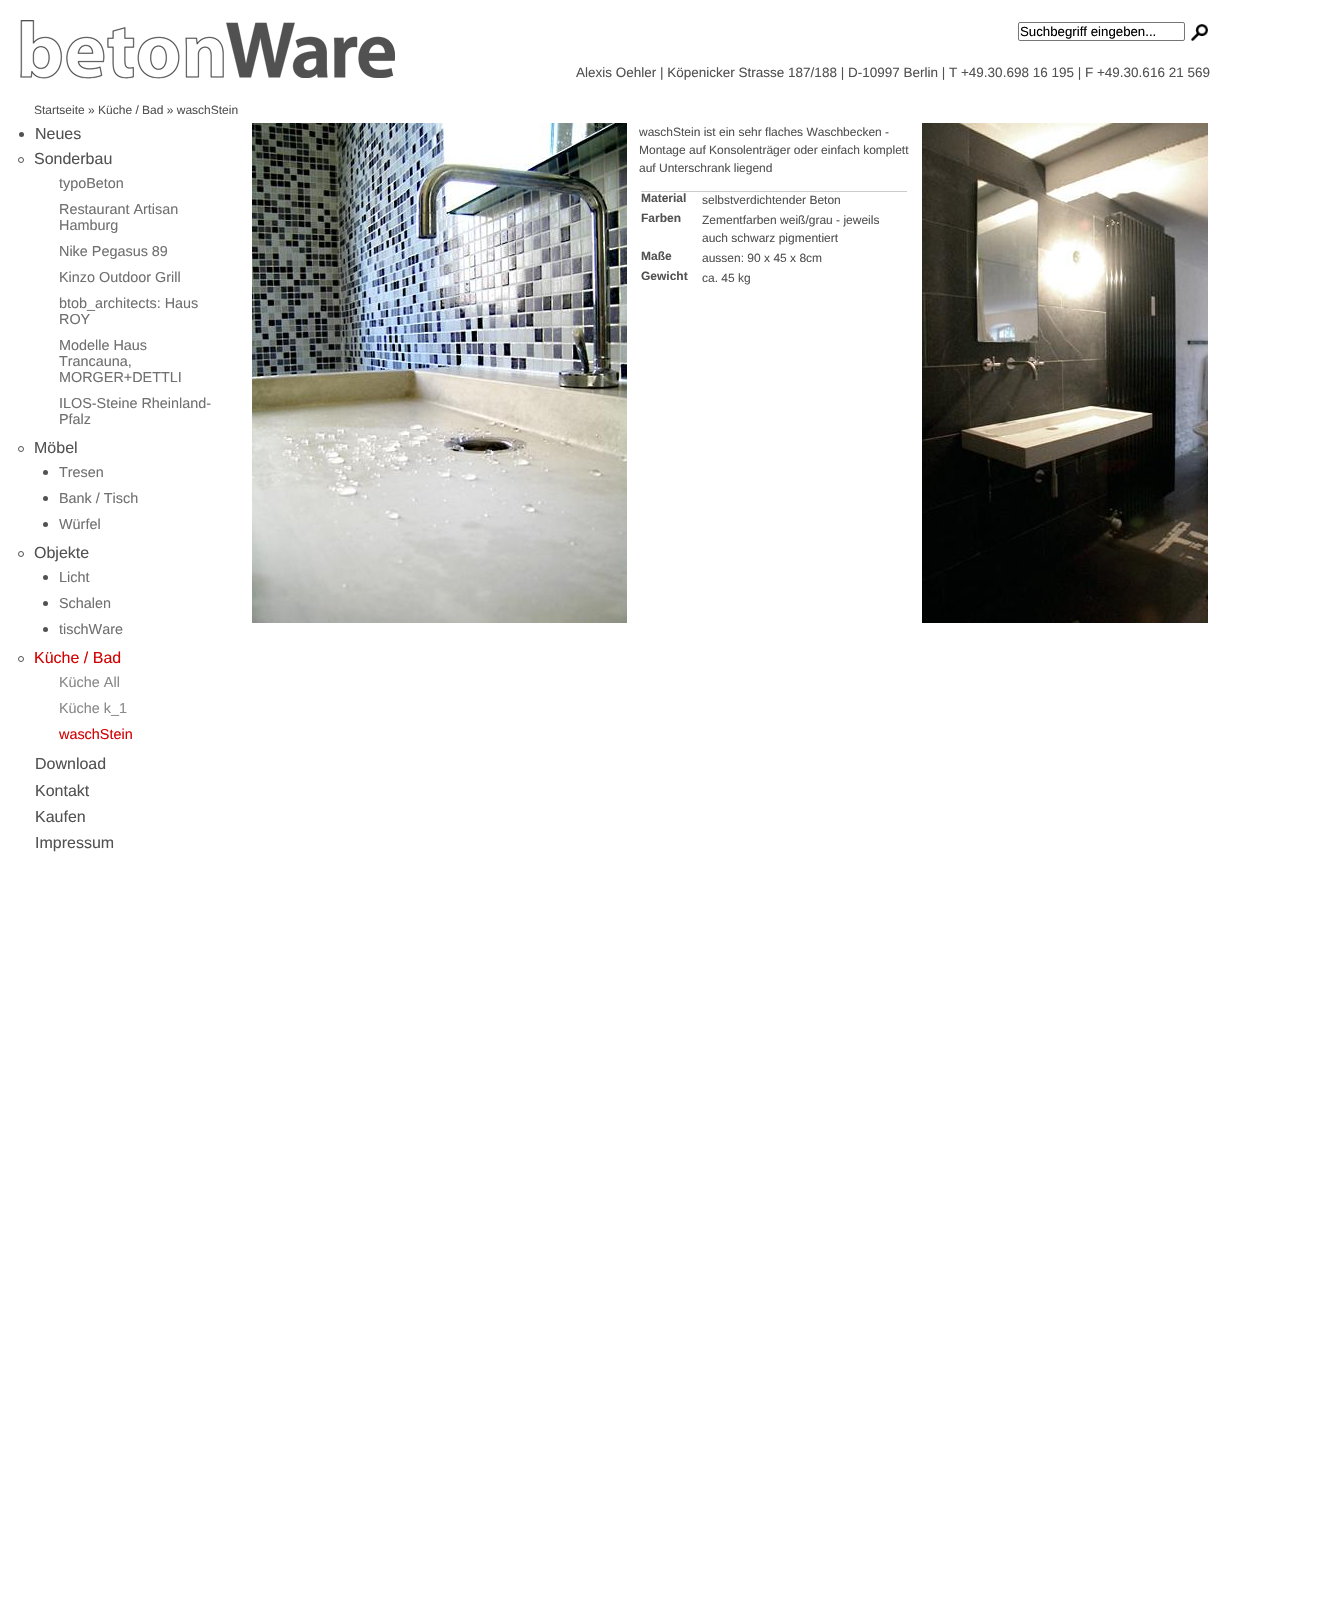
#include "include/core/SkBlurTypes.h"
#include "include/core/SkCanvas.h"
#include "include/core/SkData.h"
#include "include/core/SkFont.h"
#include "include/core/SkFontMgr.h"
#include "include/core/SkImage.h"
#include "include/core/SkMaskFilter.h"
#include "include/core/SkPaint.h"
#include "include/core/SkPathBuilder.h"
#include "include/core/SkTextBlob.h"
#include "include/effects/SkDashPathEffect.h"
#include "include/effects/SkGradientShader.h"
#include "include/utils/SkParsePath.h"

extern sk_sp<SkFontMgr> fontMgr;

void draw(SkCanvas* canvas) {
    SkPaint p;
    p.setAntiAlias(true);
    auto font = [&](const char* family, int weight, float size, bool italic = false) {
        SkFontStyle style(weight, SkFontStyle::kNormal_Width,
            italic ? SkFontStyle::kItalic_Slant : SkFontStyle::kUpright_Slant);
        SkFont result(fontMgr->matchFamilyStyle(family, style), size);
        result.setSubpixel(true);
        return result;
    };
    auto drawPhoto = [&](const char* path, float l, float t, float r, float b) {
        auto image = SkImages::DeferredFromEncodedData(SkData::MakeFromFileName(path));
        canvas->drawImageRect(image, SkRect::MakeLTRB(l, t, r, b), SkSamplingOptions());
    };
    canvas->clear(0xFFFFFFFF);
    drawPhoto("media/1.png", 20, 20, 395, 79);
    p.setStyle(SkPaint::kStroke_Style);
    p.setStrokeWidth(1);
    p.setColor(0xFF767676);
    canvas->drawRoundRect(SkRect::MakeLTRB(1018.5f, 22.5f, 1184.5f, 40.5f), 1.5f, 1.5f, p);
    auto font1 = font("Liberation Sans", 400, 13.25f);
    p.setStyle(SkPaint::kFill_Style);
    p.setColor(0xFF000000);
    canvas->drawString("Suchbegriff eingeben...", 1020, 36, font1, p);
    drawPhoto("media/2.png", 1191, 24, 1208, 41);
    auto font2 = font("Liberation Sans", 400, 13.5f);
    p.setColor(0xFF525252);
    canvas->drawString("Alexis Oehler | Köpenicker Strasse 187/188 | D-10997 Berlin | T +49.30.698 16 195 | F +49.30.616 21 569", 576, 77, font2, p);
    auto font3 = font("Liberation Sans", 400, 12);
    canvas->drawString("Startseite » Küche / Bad » waschStein", 34, 114, font3, p);
    canvas->drawCircle(21.5f, 134.5f, 2.5f, p);
    auto font4 = font("Liberation Sans", 400, 16);
    canvas->drawString("Neues", 35, 139, font4, p);
    p.setStyle(SkPaint::kStroke_Style);
    canvas->drawCircle(21, 160, 2.5f, p);
    p.setStyle(SkPaint::kFill_Style);
    canvas->drawString("Sonderbau", 34, 164, font4, p);
    auto font5 = font("Liberation Sans", 400, 14.4f);
    p.setColor(0xFF707070);
    {
        const struct { const char* s; float x, y; } items[] = {
            {"typoBeton", 59, 188},
            {"Restaurant Artisan", 59, 214},
            {"Hamburg", 59, 230},
            {"Nike Pegasus 89", 59, 256},
            {"Kinzo Outdoor Grill", 59, 282},
            {"btob_architects: Haus", 59, 308},
            {"ROY", 59, 324},
            {"Modelle Haus", 59, 350},
            {"Trancauna,", 59, 366},
            {"MORGER+DETTLI", 59, 382},
            {"ILOS-Steine Rheinland-", 59, 408},
            {"Pfalz", 59, 424},
        };
        for (auto [s, x, y] : items) {
            canvas->drawString(s, x, y, font5, p);
        }
    }
    p.setStyle(SkPaint::kStroke_Style);
    p.setColor(0xFF525252);
    canvas->drawCircle(21, 449, 2.5f, p);
    p.setStyle(SkPaint::kFill_Style);
    canvas->drawString("Möbel", 34, 453, font4, p);
    canvas->drawCircle(45.5f, 472.5f, 2.5f, p);
    p.setColor(0xFF707070);
    canvas->drawString("Tresen", 59, 477, font5, p);
    p.setColor(0xFF525252);
    canvas->drawCircle(45.5f, 498.5f, 2.5f, p);
    p.setColor(0xFF707070);
    canvas->drawString("Bank / Tisch", 59, 503, font5, p);
    p.setColor(0xFF525252);
    canvas->drawCircle(45.5f, 524.5f, 2.5f, p);
    p.setColor(0xFF707070);
    canvas->drawString("Würfel", 59, 529, font5, p);
    p.setStyle(SkPaint::kStroke_Style);
    p.setColor(0xFF525252);
    canvas->drawCircle(21, 554, 2.5f, p);
    p.setStyle(SkPaint::kFill_Style);
    canvas->drawString("Objekte", 34, 558, font4, p);
    canvas->drawCircle(45.5f, 577.5f, 2.5f, p);
    p.setColor(0xFF707070);
    canvas->drawString("Licht", 59, 582, font5, p);
    p.setColor(0xFF525252);
    canvas->drawCircle(45.5f, 603.5f, 2.5f, p);
    p.setColor(0xFF707070);
    canvas->drawString("Schalen", 59, 608, font5, p);
    p.setColor(0xFF525252);
    canvas->drawCircle(45.5f, 629.5f, 2.5f, p);
    p.setColor(0xFF707070);
    canvas->drawString("tischWare", 59, 634, font5, p);
    p.setStyle(SkPaint::kStroke_Style);
    p.setColor(0xFF525252);
    canvas->drawCircle(21, 659, 2.5f, p);
    p.setStyle(SkPaint::kFill_Style);
    p.setColor(0xFFD30202);
    canvas->drawString("Küche / Bad", 34, 663, font4, p);
    p.setColor(0xFF898989);
    canvas->drawString("Küche All", 59, 687, font5, p);
    canvas->drawString("Küche k_1", 59, 713, font5, p);
    p.setColor(0xFFD30202);
    canvas->drawString("waschStein", 59, 739, font5, p);
    p.setColor(0xFF525252);
    {
        const struct { const char* s; float x, y; } items[] = {
            {"Download", 35, 769},
            {"Kontakt", 35, 796},
            {"Kaufen", 35, 822},
            {"Impressum", 35, 848},
        };
        for (auto [s, x, y] : items) {
            canvas->drawString(s, x, y, font4, p);
        }
    }
    drawPhoto("media/3.png", 252, 123, 627, 623);
    {
        const struct { const char* s; float x, y; } items[] = {
            {"waschStein ist ein sehr flaches Waschbecken -", 639, 136},
            {"Montage auf Konsolenträger oder einfach komplett", 639, 154},
            {"auf Unterschrank liegend", 639, 172},
        };
        for (auto [s, x, y] : items) {
            canvas->drawString(s, x, y, font3, p);
        }
    }
    p.setColor(0xFFCCCCCC);
    canvas->drawRect(SkRect::MakeLTRB(641, 191, 907, 192), p);
    auto font6 = font("Liberation Sans", 700, 12);
    p.setColor(0xFF525252);
    canvas->drawString("Material", 641, 202, font6, p);
    canvas->drawString("selbstverdichtender Beton", 702, 204, font3, p);
    canvas->drawString("Farben", 641, 222, font6, p);
    canvas->drawString("Zementfarben weiß/grau - jeweils", 702, 224, font3, p);
    canvas->drawString("auch schwarz pigmentiert", 702, 242, font3, p);
    canvas->drawString("Maße", 641, 260, font6, p);
    canvas->drawString("aussen: 90 x 45 x 8cm", 702, 262, font3, p);
    canvas->drawString("Gewicht", 641, 280, font6, p);
    canvas->drawString("ca. 45 kg", 702, 282, font3, p);
    drawPhoto("media/4.png", 922, 123, 1208, 623);
}
